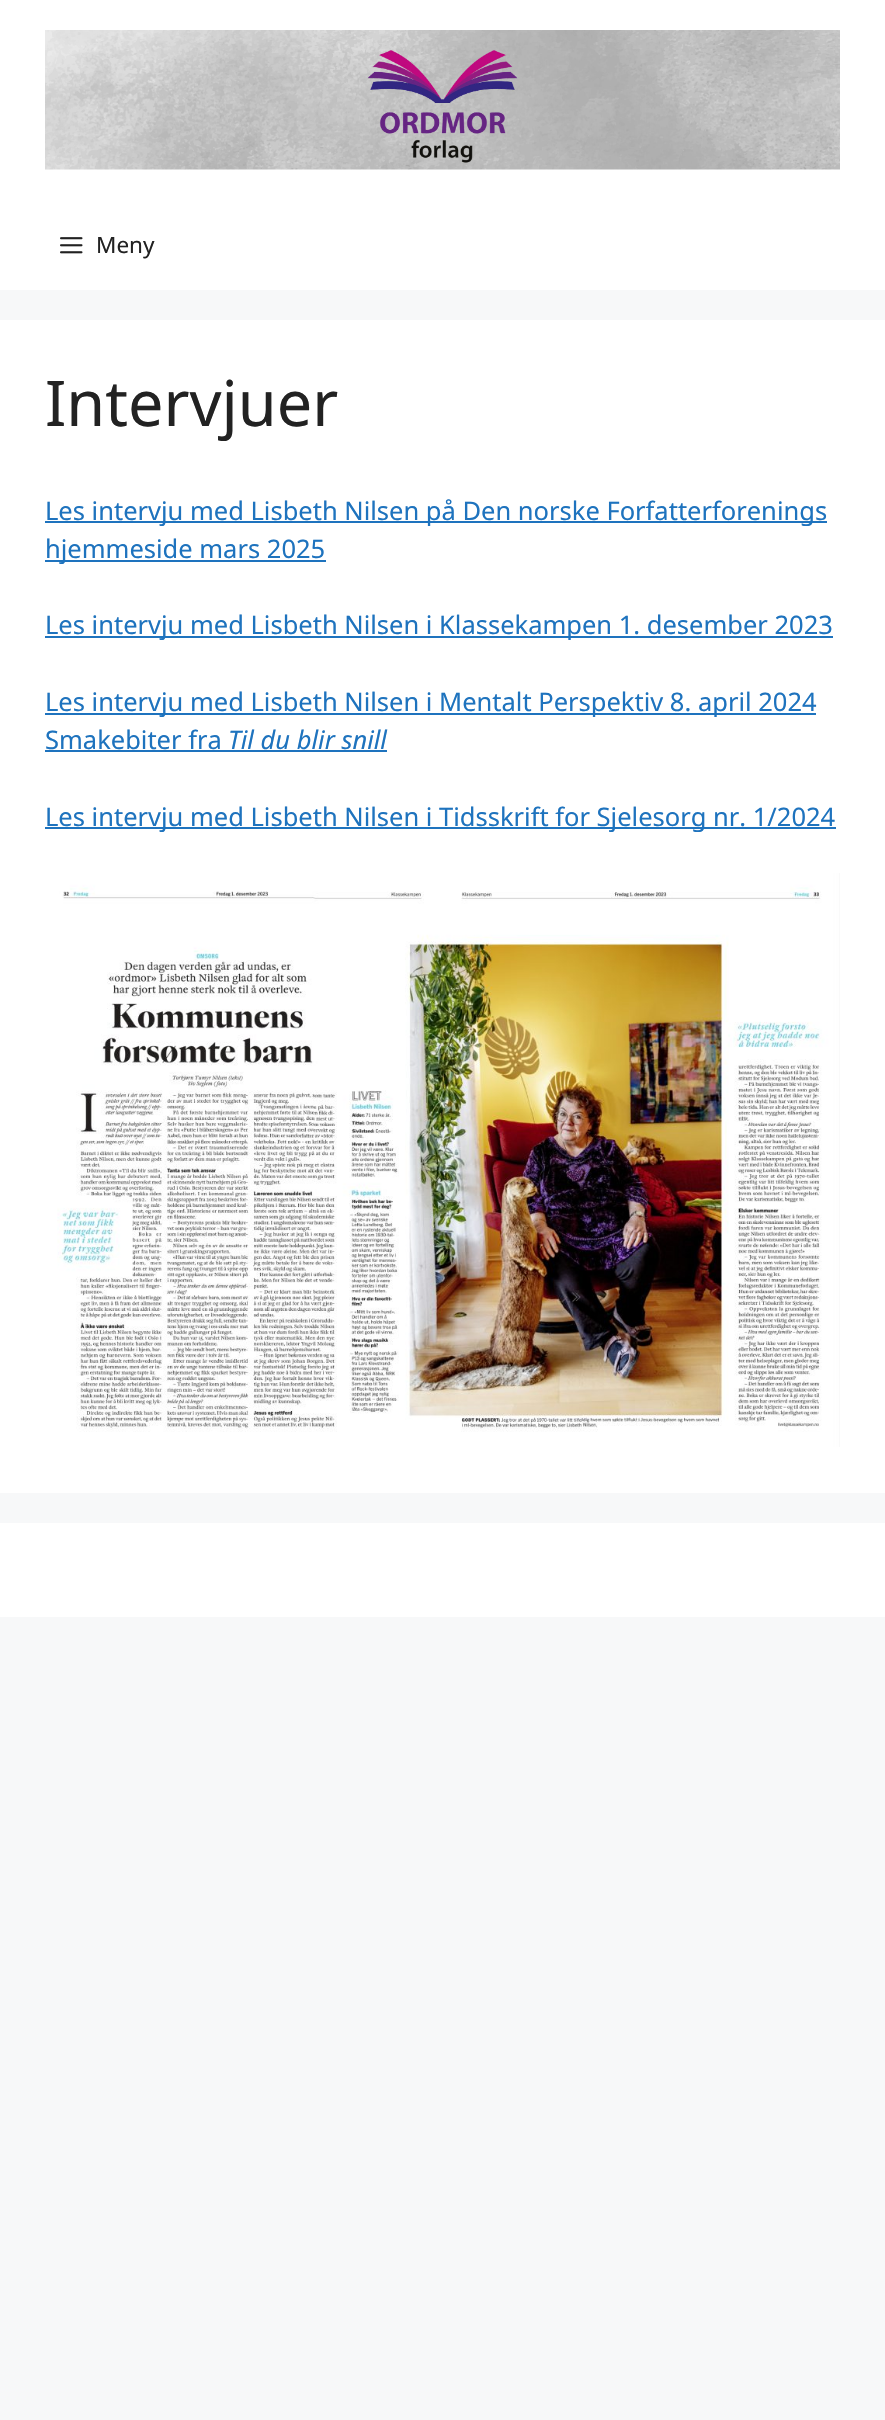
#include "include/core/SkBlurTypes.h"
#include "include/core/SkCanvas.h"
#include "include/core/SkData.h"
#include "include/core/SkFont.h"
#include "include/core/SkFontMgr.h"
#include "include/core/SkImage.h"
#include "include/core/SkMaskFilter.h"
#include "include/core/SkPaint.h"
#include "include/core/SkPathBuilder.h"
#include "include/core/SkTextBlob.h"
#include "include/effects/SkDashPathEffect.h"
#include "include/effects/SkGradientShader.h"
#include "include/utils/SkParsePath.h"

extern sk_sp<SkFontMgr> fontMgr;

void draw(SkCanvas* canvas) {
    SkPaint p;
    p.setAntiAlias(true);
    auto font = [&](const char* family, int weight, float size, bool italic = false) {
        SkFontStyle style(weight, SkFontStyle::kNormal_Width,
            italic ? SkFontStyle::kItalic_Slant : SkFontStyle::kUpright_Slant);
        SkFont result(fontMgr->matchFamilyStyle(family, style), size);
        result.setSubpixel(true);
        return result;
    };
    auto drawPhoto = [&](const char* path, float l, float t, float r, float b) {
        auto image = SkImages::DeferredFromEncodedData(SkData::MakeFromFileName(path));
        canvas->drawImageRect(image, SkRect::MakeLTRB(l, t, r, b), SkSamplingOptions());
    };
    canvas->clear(0xFFF7F8F9);
    p.setColor(0xFFFFFFFF);
    canvas->drawRect(SkRect::MakeLTRB(0, 0, 885, 290), p);
    drawPhoto("media/1.png", 45, 30, 840, 170);
    drawPhoto("media/2.png", 60, 237, 83, 254);
    auto font1 = font("Noto Sans", 400, 22.5f);
    p.setColor(0xFF222222);
    canvas->drawString("Meny", 96, 253, font1, p);
    p.setColor(0xFFFFFFFF);
    canvas->drawRect(SkRect::MakeLTRB(0, 320, 885, 1493), p);
    auto font2 = font("Noto Sans", 400, 63);
    p.setColor(0xFF222222);
    canvas->drawString("Intervjuer", 45, 426, font2, p);
    p.setColor(0xFF1E73BE);
    canvas->drawRect(SkRect::MakeLTRB(45, 521, 827, 523), p);
    auto font3 = font("Noto Sans", 400, 25.5f);
    canvas->drawString("Les intervju med Lisbeth Nilsen på Den norske Forfatterforenings", 45, 520, font3, p);
    canvas->drawRect(SkRect::MakeLTRB(45, 560, 326, 562), p);
    canvas->drawString("hjemmeside mars 2025", 45, 558, font3, p);
    canvas->drawRect(SkRect::MakeLTRB(45, 636, 833, 638), p);
    canvas->drawString("Les intervju med Lisbeth Nilsen i Klassekampen 1. desember 2023", 45, 634, font3, p);
    canvas->drawRect(SkRect::MakeLTRB(45, 713, 816, 715), p);
    canvas->drawString("Les intervju med Lisbeth Nilsen i Mentalt Perspektiv 8. april 2024", 45, 711, font3, p);
    canvas->drawString("Smakebiter fra", 45, 749, font3, p);
    canvas->drawRect(SkRect::MakeLTRB(45, 750, 387, 752), p);
    auto font4 = font("Noto Sans", 400, 25.5f, true);
    canvas->drawString("Til du blir snill", 228, 749, font4, p);
    canvas->drawRect(SkRect::MakeLTRB(45, 827, 836, 829), p);
    canvas->drawString("Les intervju med Lisbeth Nilsen i Tidsskrift for Sjelesorg nr. 1/2024", 45, 826, font3, p);
    drawPhoto("media/3.png", 57, 873, 840, 1447);
    p.setColor(0xFFFFFFFF);
    canvas->drawRect(SkRect::MakeLTRB(0, 1523, 885, 1617), p);
}
